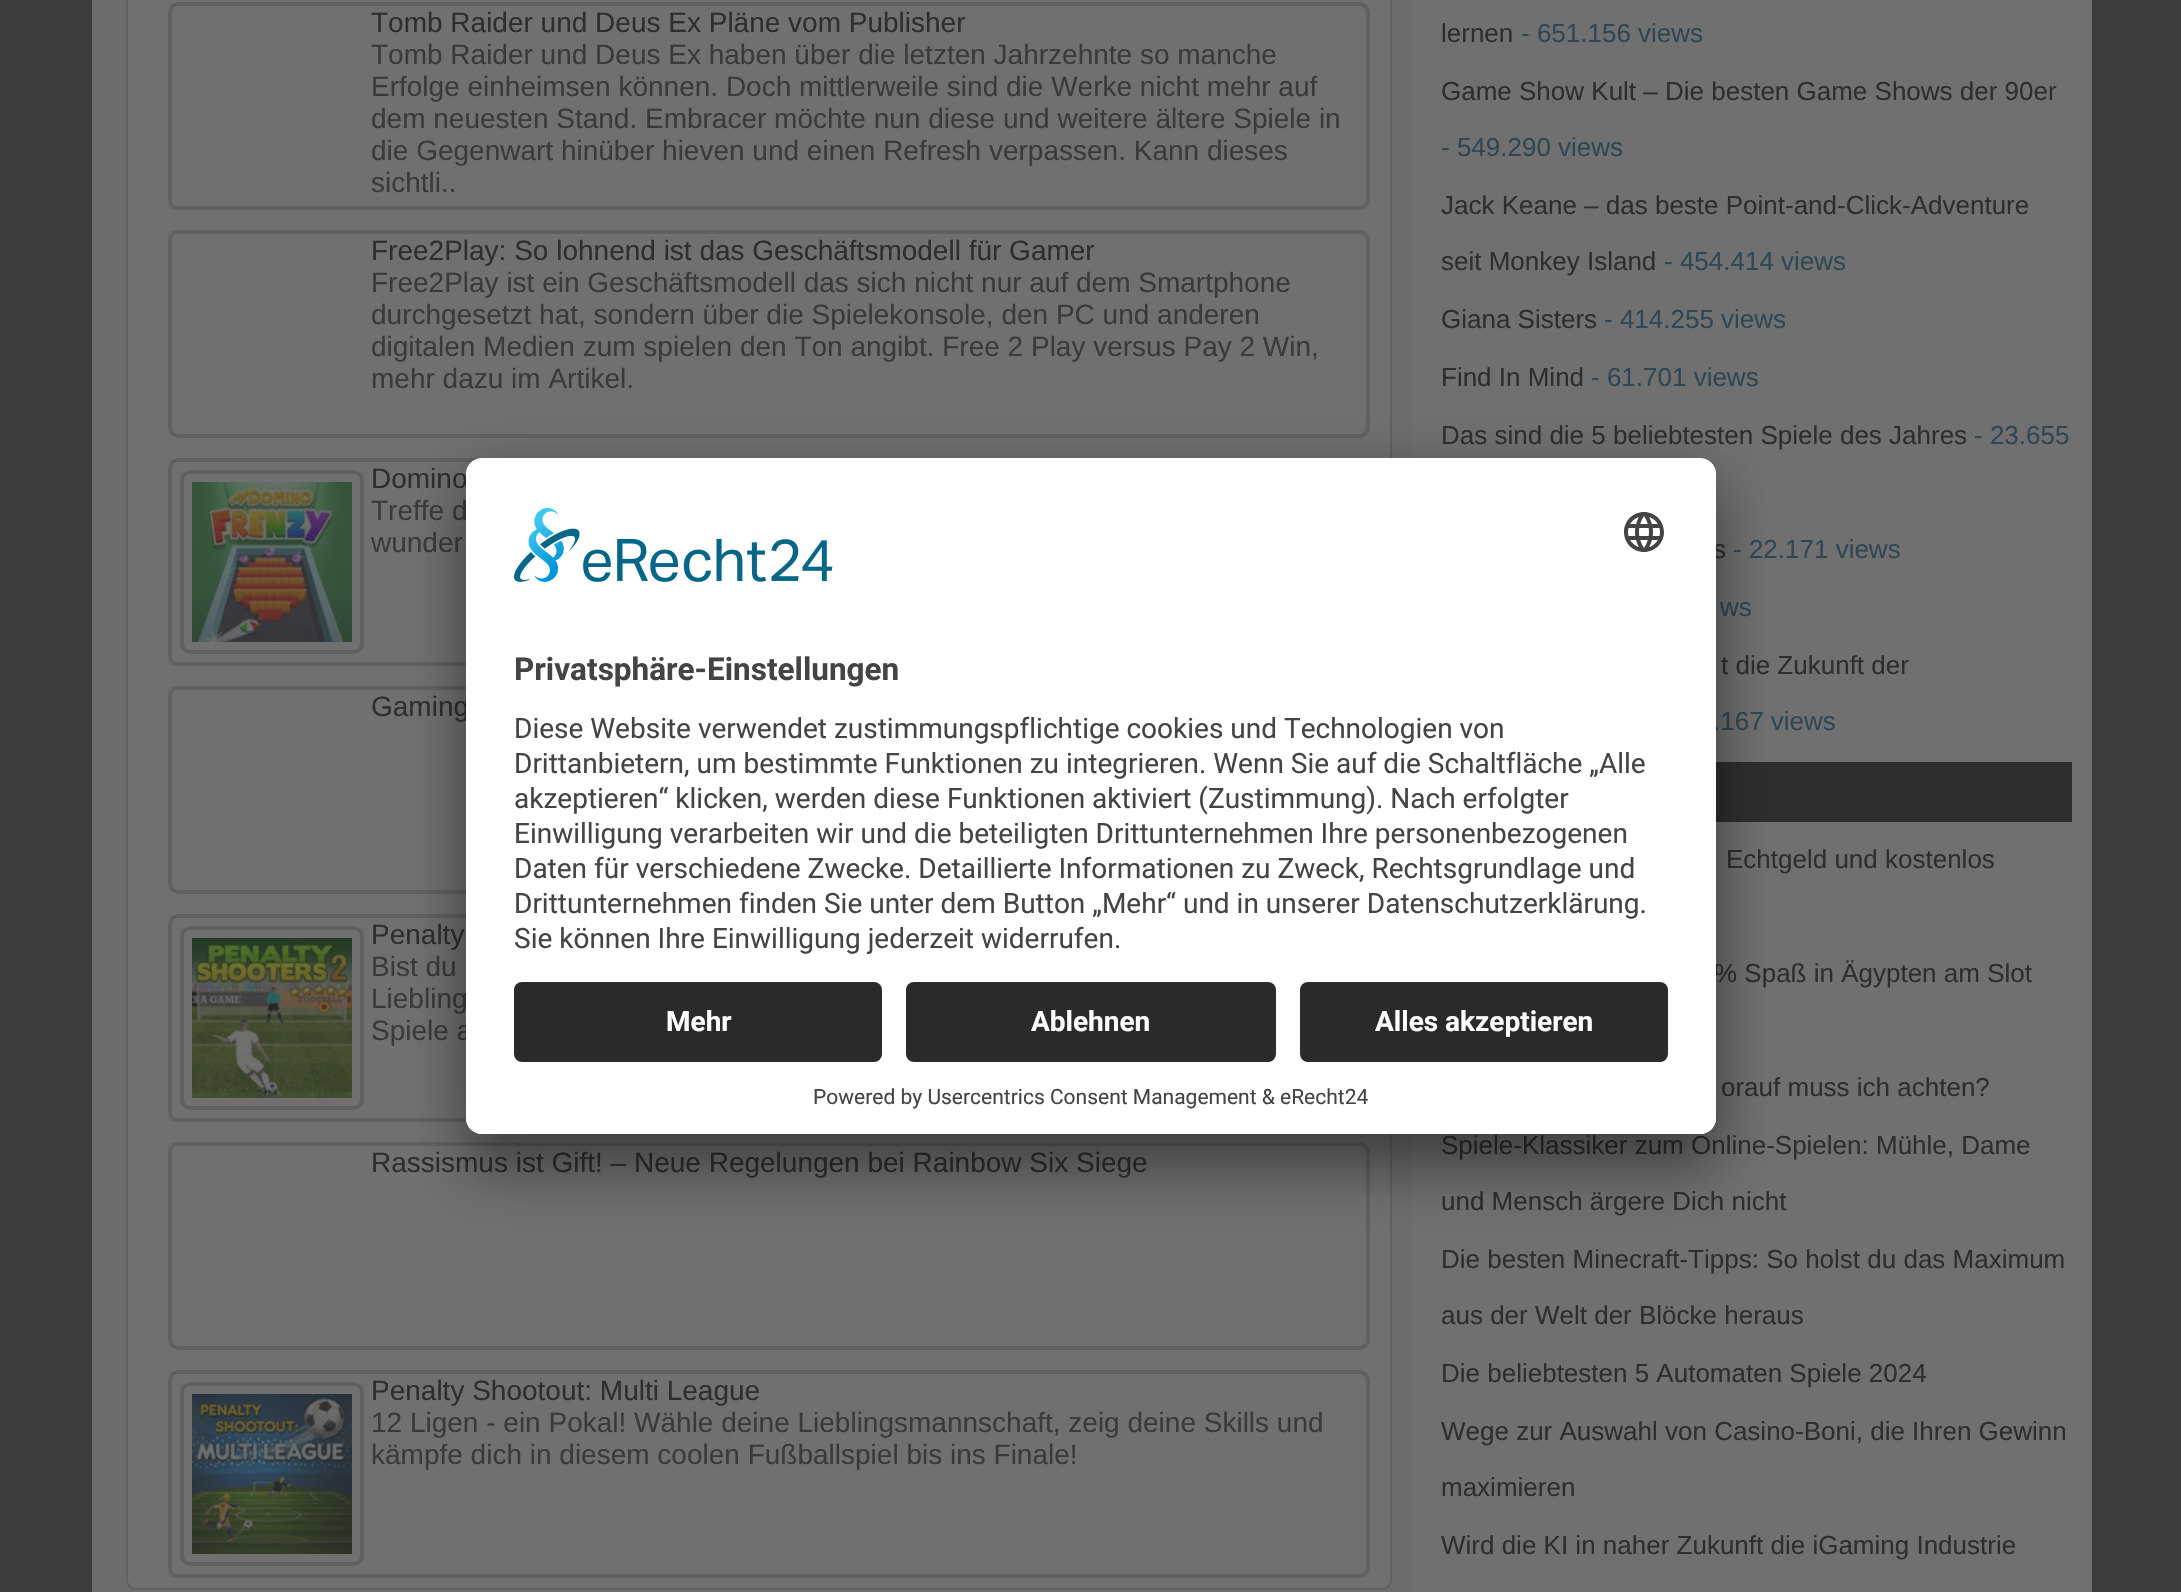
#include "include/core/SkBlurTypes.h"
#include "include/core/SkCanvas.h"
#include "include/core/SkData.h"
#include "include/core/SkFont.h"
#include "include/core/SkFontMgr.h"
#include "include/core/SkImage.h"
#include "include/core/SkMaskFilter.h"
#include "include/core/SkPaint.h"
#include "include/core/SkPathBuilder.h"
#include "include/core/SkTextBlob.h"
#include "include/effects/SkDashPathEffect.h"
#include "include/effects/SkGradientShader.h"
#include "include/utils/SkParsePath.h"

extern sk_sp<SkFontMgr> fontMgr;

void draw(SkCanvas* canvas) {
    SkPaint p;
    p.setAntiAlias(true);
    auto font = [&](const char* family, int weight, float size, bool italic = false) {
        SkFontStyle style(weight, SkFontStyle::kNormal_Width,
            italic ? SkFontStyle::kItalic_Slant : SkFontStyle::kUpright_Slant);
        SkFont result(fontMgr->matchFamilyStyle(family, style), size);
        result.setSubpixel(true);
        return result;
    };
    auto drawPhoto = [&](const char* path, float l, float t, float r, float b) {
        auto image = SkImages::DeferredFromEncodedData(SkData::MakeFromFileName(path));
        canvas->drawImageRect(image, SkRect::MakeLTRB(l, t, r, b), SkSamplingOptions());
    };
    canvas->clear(0xFF3D3D3D);
    p.setColor(0xFF6D6D6D);
    canvas->drawRect(SkRect::MakeLTRB(92, 0, 1412, 1592), p);
    p.setColor(0xFF707070);
    canvas->drawRoundRect(SkRect::MakeLTRB(127, -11, 1391, 1589), 9, 9, p);
    p.setStyle(SkPaint::kStroke_Style);
    p.setStrokeWidth(2);
    p.setColor(0xFF616161);
    canvas->drawRoundRect(SkRect::MakeLTRB(127, -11, 1391, 1589), 9, 9, p);
    p.setStrokeWidth(4);
    canvas->drawRoundRect(SkRect::MakeLTRB(170, 4, 1368, 208), 8, 8, p);
    auto font1 = font("Liberation Sans", 400, 28);
    p.setStyle(SkPaint::kFill_Style);
    p.setColor(0xFF2E2E2E);
    canvas->drawString("Tomb Raider und Deus Ex Pläne vom Publisher", 371, 32, font1, p);
    p.setColor(0xFF3C3A38);
    {
        const struct { const char* s; float x, y; } items[] = {
            {"Tomb Raider und Deus Ex haben über die letzten Jahrzehnte so manche", 371, 64},
            {"Erfolge einheimsen können. Doch mittlerweile sind die Werke nicht mehr auf", 371, 96},
            {"dem neuesten Stand. Embracer möchte nun diese und weitere ältere Spiele in", 371, 128},
            {"die Gegenwart hinüber hieven und einen Refresh verpassen. Kann dieses", 371, 160},
            {"sichtli..", 371, 192},
        };
        for (auto [s, x, y] : items) {
            canvas->drawString(s, x, y, font1, p);
        }
    }
    p.setStyle(SkPaint::kStroke_Style);
    p.setColor(0xFF616161);
    canvas->drawRoundRect(SkRect::MakeLTRB(170, 232, 1368, 436), 8, 8, p);
    p.setStyle(SkPaint::kFill_Style);
    p.setColor(0xFF2E2E2E);
    canvas->drawString("Free2Play: So lohnend ist das Geschäftsmodell für Gamer", 371, 260, font1, p);
    p.setColor(0xFF3C3A38);
    {
        const struct { const char* s; float x, y; } items[] = {
            {"Free2Play ist ein Geschäftsmodell das sich nicht nur auf dem Smartphone", 371, 292},
            {"durchgesetzt hat, sondern über die Spielekonsole, den PC und anderen", 371, 324},
            {"digitalen Medien zum spielen den Ton angibt. Free 2 Play versus Pay 2 Win,", 371, 356},
            {"mehr dazu im Artikel.", 371, 388},
        };
        for (auto [s, x, y] : items) {
            canvas->drawString(s, x, y, font1, p);
        }
    }
    p.setStyle(SkPaint::kStroke_Style);
    p.setColor(0xFF616161);
    canvas->drawRoundRect(SkRect::MakeLTRB(170, 460, 1368, 664), 8, 8, p);
    canvas->drawRoundRect(SkRect::MakeLTRB(182, 472, 362, 652), 8, 8, p);
    drawPhoto("media/1.png", 192, 482, 352, 642);
    p.setStyle(SkPaint::kFill_Style);
    p.setColor(0xFF2E2E2E);
    canvas->drawString("Domino", 371, 488, font1, p);
    p.setColor(0xFF3C3A38);
    canvas->drawString("Treffe d", 371, 520, font1, p);
    canvas->drawString("wunder", 371, 552, font1, p);
    p.setStyle(SkPaint::kStroke_Style);
    p.setColor(0xFF616161);
    canvas->drawRoundRect(SkRect::MakeLTRB(170, 688, 1368, 892), 8, 8, p);
    p.setStyle(SkPaint::kFill_Style);
    p.setColor(0xFF2E2E2E);
    canvas->drawString("Gaming", 371, 716, font1, p);
    p.setStyle(SkPaint::kStroke_Style);
    p.setColor(0xFF616161);
    canvas->drawRoundRect(SkRect::MakeLTRB(170, 916, 1368, 1120), 8, 8, p);
    canvas->drawRoundRect(SkRect::MakeLTRB(182, 928, 362, 1108), 8, 8, p);
    drawPhoto("media/2.png", 192, 938, 352, 1098);
    p.setStyle(SkPaint::kFill_Style);
    p.setColor(0xFF2E2E2E);
    canvas->drawString("Penalty", 371, 944, font1, p);
    p.setColor(0xFF3C3A38);
    {
        const struct { const char* s; float x, y; } items[] = {
            {"Bist du", 371, 976},
            {"Liebling", 371, 1008},
            {"Spiele a", 371, 1040},
        };
        for (auto [s, x, y] : items) {
            canvas->drawString(s, x, y, font1, p);
        }
    }
    p.setStyle(SkPaint::kStroke_Style);
    p.setColor(0xFF616161);
    canvas->drawRoundRect(SkRect::MakeLTRB(170, 1144, 1368, 1348), 8, 8, p);
    p.setStyle(SkPaint::kFill_Style);
    p.setColor(0xFF2E2E2E);
    canvas->drawString("Rassismus ist Gift! – Neue Regelungen bei Rainbow Six Siege", 371, 1172, font1, p);
    p.setStyle(SkPaint::kStroke_Style);
    p.setColor(0xFF616161);
    canvas->drawRoundRect(SkRect::MakeLTRB(170, 1372, 1368, 1576), 8, 8, p);
    canvas->drawRoundRect(SkRect::MakeLTRB(182, 1384, 362, 1564), 8, 8, p);
    drawPhoto("media/3.png", 192, 1394, 352, 1554);
    p.setStyle(SkPaint::kFill_Style);
    p.setColor(0xFF2E2E2E);
    canvas->drawString("Penalty Shootout: Multi League", 371, 1400, font1, p);
    p.setColor(0xFF3C3A38);
    canvas->drawString("12 Ligen - ein Pokal! Wähle deine Lieblingsmannschaft, zeig deine Skills und", 371, 1432, font1, p);
    canvas->drawString("kämpfe dich in diesem coolen Fußballspiel bis ins Finale!", 371, 1464, font1, p);
    p.setColor(0xFF707070);
    canvas->drawRect(SkRect::MakeLTRB(1412, 0, 2092, 1592), p);
    auto font2 = font("Liberation Sans", 400, 26);
    p.setColor(0xFF2E2E2E);
    canvas->drawString("lernen", 1441, 42, font2, p);
    p.setColor(0xFF2F4754);
    canvas->drawString("- 651.156 views", 1521, 42, font2, p);
    p.setColor(0xFF2E2E2E);
    canvas->drawString("Game Show Kult – Die besten Game Shows der 90er", 1441, 100, font2, p);
    p.setColor(0xFF2F4754);
    canvas->drawString("- 549.290 views", 1441, 156, font2, p);
    p.setColor(0xFF2E2E2E);
    canvas->drawString("Jack Keane – das beste Point-and-Click-Adventure", 1441, 214, font2, p);
    canvas->drawString("seit Monkey Island", 1441, 270, font2, p);
    p.setColor(0xFF2F4754);
    canvas->drawString("- 454.414 views", 1664, 270, font2, p);
    p.setColor(0xFF2E2E2E);
    canvas->drawString("Giana Sisters", 1441, 328, font2, p);
    p.setColor(0xFF2F4754);
    canvas->drawString("- 414.255 views", 1604, 328, font2, p);
    p.setColor(0xFF2E2E2E);
    canvas->drawString("Find In Mind", 1441, 386, font2, p);
    p.setColor(0xFF2F4754);
    canvas->drawString("- 61.701 views", 1591, 386, font2, p);
    p.setColor(0xFF2E2E2E);
    canvas->drawString("Das sind die 5 beliebtesten Spiele des Jahres", 1441, 444, font2, p);
    p.setColor(0xFF2F4754);
    canvas->drawString("- 23.655", 1974, 444, font2, p);
    p.setColor(0xFF2E2E2E);
    canvas->drawString("s", 1713, 558, font2, p);
    p.setColor(0xFF2F4754);
    canvas->drawString("- 22.171 views", 1733, 558, font2, p);
    canvas->drawString("ws", 1720, 616, font2, p);
    p.setColor(0xFF2E2E2E);
    canvas->drawString("t die Zukunft der", 1721, 674, font2, p);
    p.setColor(0xFF2F4754);
    canvas->drawString(".167 views", 1713, 730, font2, p);
    p.setColor(0xFF2E2E2E);
    canvas->drawRect(SkRect::MakeLTRB(1716, 762, 2072, 822), p);
    {
        const struct { const char* s; float x, y; } items[] = {
            {"Echtgeld und kostenlos", 1726, 868},
            {"% Spaß in Ägypten am Slot", 1714, 982},
            {"orauf muss ich achten?", 1721, 1096},
            {"Spiele-Klassiker zum Online-Spielen: Mühle, Dame", 1441, 1154},
            {"und Mensch ärgere Dich nicht", 1441, 1210},
            {"Die besten Minecraft-Tipps: So holst du das Maximum", 1441, 1268},
            {"aus der Welt der Blöcke heraus", 1441, 1324},
            {"Die beliebtesten 5 Automaten Spiele 2024", 1441, 1382},
            {"Wege zur Auswahl von Casino-Boni, die Ihren Gewinn", 1441, 1440},
            {"maximieren", 1441, 1496},
            {"Wird die KI in naher Zukunft die iGaming Industrie", 1441, 1554},
        };
        for (auto [s, x, y] : items) {
            canvas->drawString(s, x, y, font2, p);
        }
    }
    p.setColor(0x4D000000);
    p.setMaskFilter(SkMaskFilter::MakeBlur(kNormal_SkBlurStyle, 28));
    canvas->drawRoundRect(SkRect::MakeLTRB(466, 498, 1716, 1174), 16, 16, p);
    p.setMaskFilter(nullptr);
    p.setColor(0x38000000);
    p.setMaskFilter(SkMaskFilter::MakeBlur(kNormal_SkBlurStyle, 26));
    canvas->drawRoundRect(SkRect::MakeLTRB(466, 468, 1716, 1144), 16, 16, p);
    p.setMaskFilter(nullptr);
    p.setColor(0xFFFFFFFF);
    canvas->drawRoundRect(SkRect::MakeLTRB(466, 458, 1716, 1134), 16, 16, p);
    canvas->save();
    canvas->clipPath(SkPathBuilder().moveTo(482, 458).lineTo(1700, 458).cubicTo(1709, 458, 1716, 465, 1716, 474).lineTo(1716, 1118).cubicTo(1716, 1127, 1709, 1134, 1700, 1134).lineTo(482, 1134).cubicTo(473, 1134, 466, 1127, 466, 1118).lineTo(466, 474).cubicTo(466, 465, 473, 458, 482, 458).close().detach(), true);
    canvas->clipPath(SkPathBuilder().moveTo(482, 458).lineTo(1700, 458).cubicTo(1709, 458, 1716, 465, 1716, 474).lineTo(1716, 966).lineTo(466, 966).lineTo(466, 474).cubicTo(466, 465, 473, 458, 482, 458).close().detach(), true);
    canvas->drawRect(SkRect::MakeLTRB(466, 460, 1716, 966), p);
    canvas->restore();
    drawPhoto("media/4.png", 514, 508, 833, 582);
    drawPhoto("media/5.png", 1624, 512, 1664, 552);
    auto font3 = font("Roboto", 700, 31.5f);
    p.setColor(0xFF444444);
    canvas->drawString("Privatsphäre-Einstellungen", 514, 680, font3, p);
    auto font4 = font("Roboto", 400, 28);
    {
        const struct { const char* s; float x, y; } items[] = {
            {"Diese Website verwendet zustimmungspflichtige cookies und Technologien von", 514, 738},
            {"Drittanbietern, um bestimmte Funktionen zu integrieren. Wenn Sie auf die Schaltfläche „Alle", 514, 773},
            {"akzeptieren“ klicken, werden diese Funktionen aktiviert (Zustimmung). Nach erfolgter", 514, 808},
            {"Einwilligung verarbeiten wir und die beteiligten Drittunternehmen Ihre personenbezogenen", 514, 843},
            {"Daten für verschiedene Zwecke. Detaillierte Informationen zu Zweck, Rechtsgrundlage und", 514, 878},
            {"Drittunternehmen finden Sie unter dem Button „Mehr“ und in unserer Datenschutzerklärung.", 514, 913},
            {"Sie können Ihre Einwilligung jederzeit widerrufen.", 514, 948},
        };
        for (auto [s, x, y] : items) {
            canvas->drawString(s, x, y, font4, p);
        }
    }
    p.setColor(0xFFFFFFFF);
    canvas->drawPath(SkPathBuilder().moveTo(466, 966).lineTo(1716, 966).lineTo(1716, 1118).cubicTo(1716, 1127, 1709, 1134, 1700, 1134).lineTo(482, 1134).cubicTo(473, 1134, 466, 1127, 466, 1118).close().detach(), p);
    p.setColor(0xFF292A2B);
    canvas->drawRoundRect(SkRect::MakeLTRB(514, 982, 882, 1062), 8, 8, p);
    auto font5 = font("Roboto", 700, 28);
    p.setColor(0xFFFFFFFF);
    canvas->drawString("Mehr", 666, 1031, font5, p);
    p.setColor(0xFF292A2B);
    canvas->drawRoundRect(SkRect::MakeLTRB(906, 982, 1276, 1062), 8, 8, p);
    p.setColor(0xFFFFFFFF);
    canvas->drawString("Ablehnen", 1031, 1031, font5, p);
    p.setColor(0xFF292A2B);
    canvas->drawRoundRect(SkRect::MakeLTRB(1300, 982, 1668, 1062), 8, 8, p);
    p.setColor(0xFFFFFFFF);
    canvas->drawString("Alles akzeptieren", 1375, 1031, font5, p);
    auto font6 = font("Roboto", 400, 21);
    p.setColor(0xFF444444);
    canvas->drawString("Powered by Usercentrics Consent Management & eRecht24", 813, 1104, font6, p);
}
